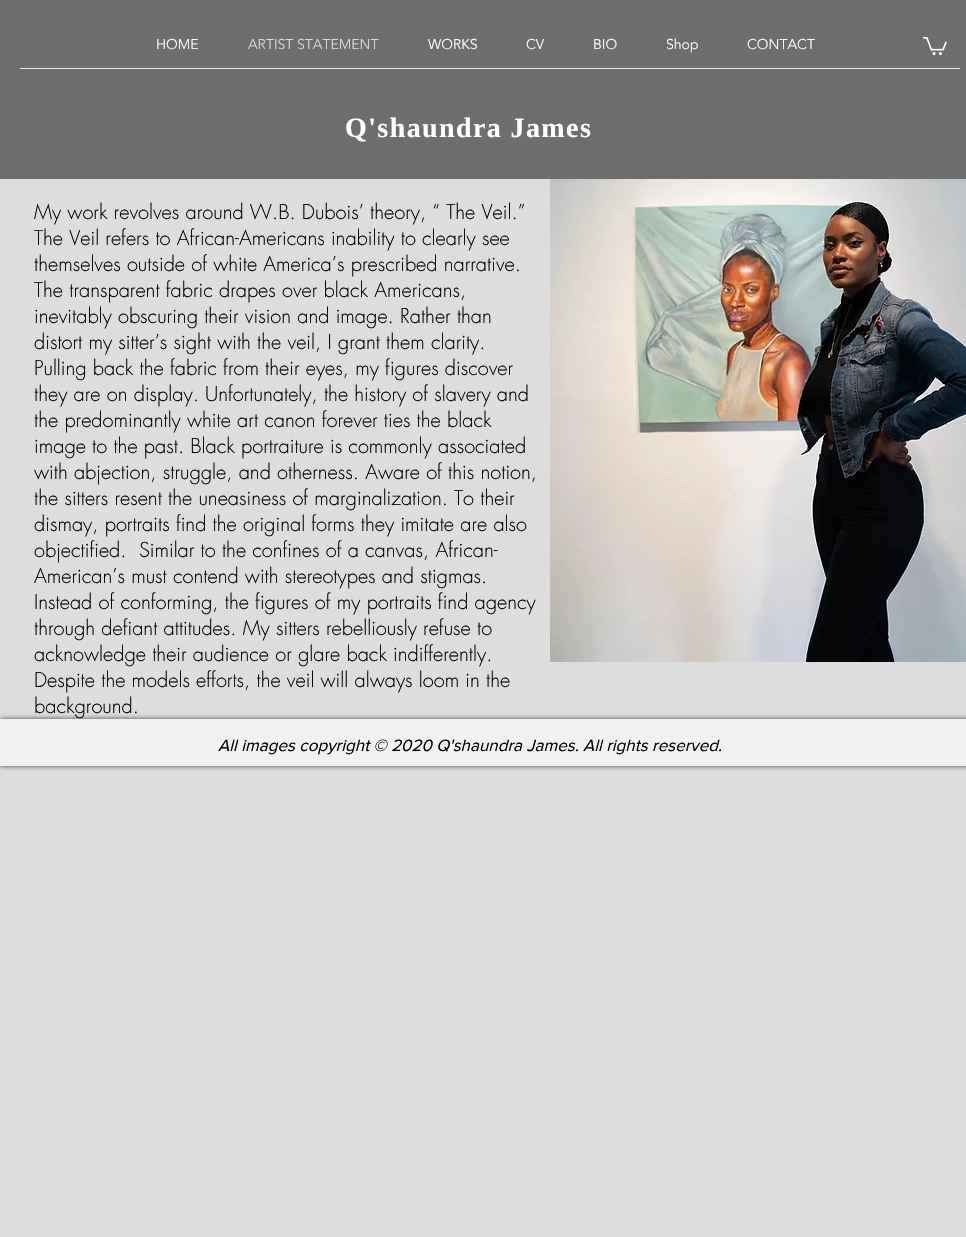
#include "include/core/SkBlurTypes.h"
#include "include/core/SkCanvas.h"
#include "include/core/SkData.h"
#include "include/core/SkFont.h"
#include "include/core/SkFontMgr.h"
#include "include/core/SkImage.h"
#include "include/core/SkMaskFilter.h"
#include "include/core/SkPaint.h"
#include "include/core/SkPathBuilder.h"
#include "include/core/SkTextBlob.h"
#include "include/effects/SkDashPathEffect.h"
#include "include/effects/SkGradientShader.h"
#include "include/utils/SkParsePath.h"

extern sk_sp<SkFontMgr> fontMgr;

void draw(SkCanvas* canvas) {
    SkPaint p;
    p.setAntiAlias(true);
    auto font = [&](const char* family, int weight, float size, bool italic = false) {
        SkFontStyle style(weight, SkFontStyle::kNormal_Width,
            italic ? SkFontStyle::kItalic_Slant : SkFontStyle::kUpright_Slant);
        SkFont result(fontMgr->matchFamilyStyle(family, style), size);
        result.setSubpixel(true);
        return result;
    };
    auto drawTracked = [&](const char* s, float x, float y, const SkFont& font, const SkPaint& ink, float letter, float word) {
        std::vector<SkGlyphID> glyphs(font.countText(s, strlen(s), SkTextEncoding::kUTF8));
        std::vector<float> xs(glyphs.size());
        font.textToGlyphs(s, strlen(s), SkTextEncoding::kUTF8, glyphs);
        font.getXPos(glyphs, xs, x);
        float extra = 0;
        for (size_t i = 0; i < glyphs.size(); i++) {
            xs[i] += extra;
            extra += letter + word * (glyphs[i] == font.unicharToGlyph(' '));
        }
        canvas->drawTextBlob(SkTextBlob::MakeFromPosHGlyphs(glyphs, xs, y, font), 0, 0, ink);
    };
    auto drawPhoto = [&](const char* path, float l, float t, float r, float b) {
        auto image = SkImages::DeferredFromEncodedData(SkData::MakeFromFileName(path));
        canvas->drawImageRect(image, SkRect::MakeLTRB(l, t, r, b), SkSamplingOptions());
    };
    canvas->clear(0xFFDEDDDD);
    p.setColor(0xFF6E6D6D);
    canvas->drawRect(SkRect::MakeLTRB(0, 0, 966, 179), p);
    auto font1 = font("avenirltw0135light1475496", 300, 14);
    p.setColor(0xFFFFFFFF);
    canvas->drawString("HOME", 156, 49, font1, p);
    p.setColor(0xFFDEDDDD);
    canvas->drawString("ARTIST STATEMENT", 248, 49, font1, p);
    p.setColor(0xFFFFFFFF);
    {
        const struct { const char* s; float x, y; } items[] = {
            {"WORKS", 428, 49},
            {"CV", 526, 49},
            {"BIO", 593, 49},
            {"Shop", 666, 49},
            {"CONTACT", 747, 49},
        };
        for (auto [s, x, y] : items) {
            canvas->drawString(s, x, y, font1, p);
        }
    }
    drawPhoto("media/1.png", 923, 37, 947, 56);
    p.setColor(0xFFE9E9E9);
    canvas->drawRect(SkRect::MakeLTRB(20, 68, 960, 69), p);
    auto font2 = font("Liberation Serif", 700, 28);
    p.setColor(0xFFFFFFFF);
    drawTracked("Q'shaundra James", 345, 137, font2, p, 1.4f, 0);
    auto font3 = font("futura", 300, 20);
    p.setColor(0xFF000000);
    {
        const struct { const char* s; float x, y; } items[] = {
            {"My work revolves around W.B. Dubois’ theory, “ The Veil.”", 34, 219},
            {"The Veil refers to African-Americans inability to clearly see", 34, 245},
            {"themselves outside of white America’s prescribed narrative.", 34, 271},
            {"The transparent fabric drapes over black Americans,", 34, 297},
            {"inevitably obscuring their vision and image. Rather than", 34, 323},
            {"distort my sitter’s sight with the veil, I grant them clarity.", 34, 349},
            {"Pulling back the fabric from their eyes, my figures discover", 34, 375},
            {"they are on display. Unfortunately, the history of slavery and", 34, 401},
            {"the predominantly white art canon forever ties the black", 34, 427},
            {"image to the past. Black portraiture is commonly associated", 34, 453},
            {"with abjection, struggle, and otherness. Aware of this notion,", 34, 479},
            {"the sitters resent the uneasiness of marginalization. To their", 34, 505},
            {"dismay, portraits find the original forms they imitate are also", 34, 531},
            {"objectified.  Similar to the confines of a canvas, African-", 34, 557},
            {"American’s must contend with stereotypes and stigmas.", 34, 583},
            {"Instead of conforming, the figures of my portraits find agency", 34, 609},
            {"through defiant attitudes. My sitters rebelliously refuse to", 34, 635},
            {"acknowledge their audience or glare back indifferently.", 34, 661},
            {"Despite the models efforts, the veil will always loom in the", 34, 687},
            {"background.", 34, 713},
        };
        for (auto [s, x, y] : items) {
            canvas->drawString(s, x, y, font3, p);
        }
    }
    drawPhoto("media/2.png", 550, 179, 966, 662);
    p.setColor(0xB3000000);
    p.setMaskFilter(SkMaskFilter::MakeBlur(kNormal_SkBlurStyle, 2.5f));
    canvas->drawRect(SkRect::MakeLTRB(0, 719, 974, 766), p);
    p.setMaskFilter(nullptr);
    p.setColor(0xFFF2F1F1);
    canvas->drawRect(SkRect::MakeLTRB(0, 719, 966, 766), p);
    auto font4 = font("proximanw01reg", 400, 17, true);
    p.setColor(0xFF000000);
    canvas->drawString("All images copyright © 2020 Q'shaundra James. All rights reserved.", 218, 751, font4, p);
}
